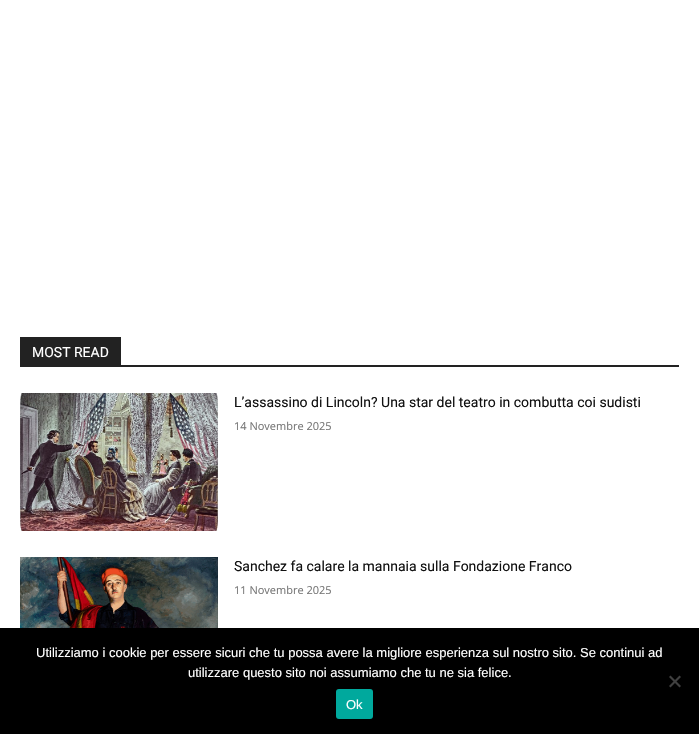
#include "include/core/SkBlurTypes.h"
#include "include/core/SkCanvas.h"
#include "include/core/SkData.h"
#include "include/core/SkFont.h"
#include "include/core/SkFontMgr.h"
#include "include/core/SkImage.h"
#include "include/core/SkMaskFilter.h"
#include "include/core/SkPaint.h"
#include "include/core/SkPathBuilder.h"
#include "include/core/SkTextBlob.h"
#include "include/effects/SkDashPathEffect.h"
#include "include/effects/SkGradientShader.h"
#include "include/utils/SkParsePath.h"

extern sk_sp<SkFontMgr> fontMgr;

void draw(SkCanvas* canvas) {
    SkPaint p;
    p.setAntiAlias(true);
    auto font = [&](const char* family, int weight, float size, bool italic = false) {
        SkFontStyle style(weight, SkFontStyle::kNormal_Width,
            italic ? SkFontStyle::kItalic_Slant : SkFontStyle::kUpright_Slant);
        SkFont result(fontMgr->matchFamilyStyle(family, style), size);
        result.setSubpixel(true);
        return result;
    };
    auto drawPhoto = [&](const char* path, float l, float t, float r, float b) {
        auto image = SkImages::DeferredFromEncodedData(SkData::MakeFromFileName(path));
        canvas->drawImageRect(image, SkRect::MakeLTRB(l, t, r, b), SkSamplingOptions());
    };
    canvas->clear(0xFFFFFFFF);
    p.setColor(0xFF222222);
    canvas->drawRect(SkRect::MakeLTRB(20, 365, 679, 367), p);
    canvas->drawRect(SkRect::MakeLTRB(20, 337, 121, 365), p);
    auto font1 = font("Roboto", 400, 14);
    p.setColor(0xFFFFFFFF);
    canvas->drawString("MOST READ", 32, 357, font1, p);
    drawPhoto("media/1.png", 20, 393, 218, 531);
    p.setColor(0xFF111111);
    canvas->drawString("L’assassino di Lincoln? Una star del teatro in combutta coi sudisti", 234, 407, font1, p);
    auto font2 = font("Open Sans", 400, 11);
    p.setColor(0xFF767676);
    canvas->drawString("14 Novembre 2025", 234, 430, font2, p);
    drawPhoto("media/2.png", 20, 557, 218, 628);
    p.setColor(0xFF111111);
    canvas->drawString("Sanchez fa calare la mannaia sulla Fondazione Franco", 234, 571, font1, p);
    p.setColor(0xFF767676);
    canvas->drawString("11 Novembre 2025", 234, 594, font2, p);
    p.setColor(0xFF000000);
    canvas->drawRect(SkRect::MakeLTRB(0, 628, 699, 734), p);
    auto font3 = font("Liberation Sans", 400, 13);
    p.setColor(0xFFFFFFFF);
    canvas->drawString("Utilizziamo i cookie per essere sicuri che tu possa avere la migliore esperienza sul nostro sito. Se continui ad", 36, 657, font3, p);
    canvas->drawString("utilizzare questo sito noi assumiamo che tu ne sia felice.", 188, 677, font3, p);
    p.setColor(0xFF404040);
    canvas->drawPath(SkPathBuilder().moveTo(679.5f, 675.5f).lineTo(681, 677).lineTo(670.5f, 687.5f).lineTo(669, 686).close().detach(), p);
    canvas->drawPath(SkPathBuilder().moveTo(669, 677).lineTo(670.5f, 675.5f).lineTo(681, 686).lineTo(679.5f, 687.5f).close().detach(), p);
    p.setColor(0xFF00A99D);
    canvas->drawRoundRect(SkRect::MakeLTRB(336, 689, 373, 719), 3, 3, p);
    p.setColor(0xFFFFFFFF);
    canvas->drawString("Ok", 346, 709, font3, p);
}
